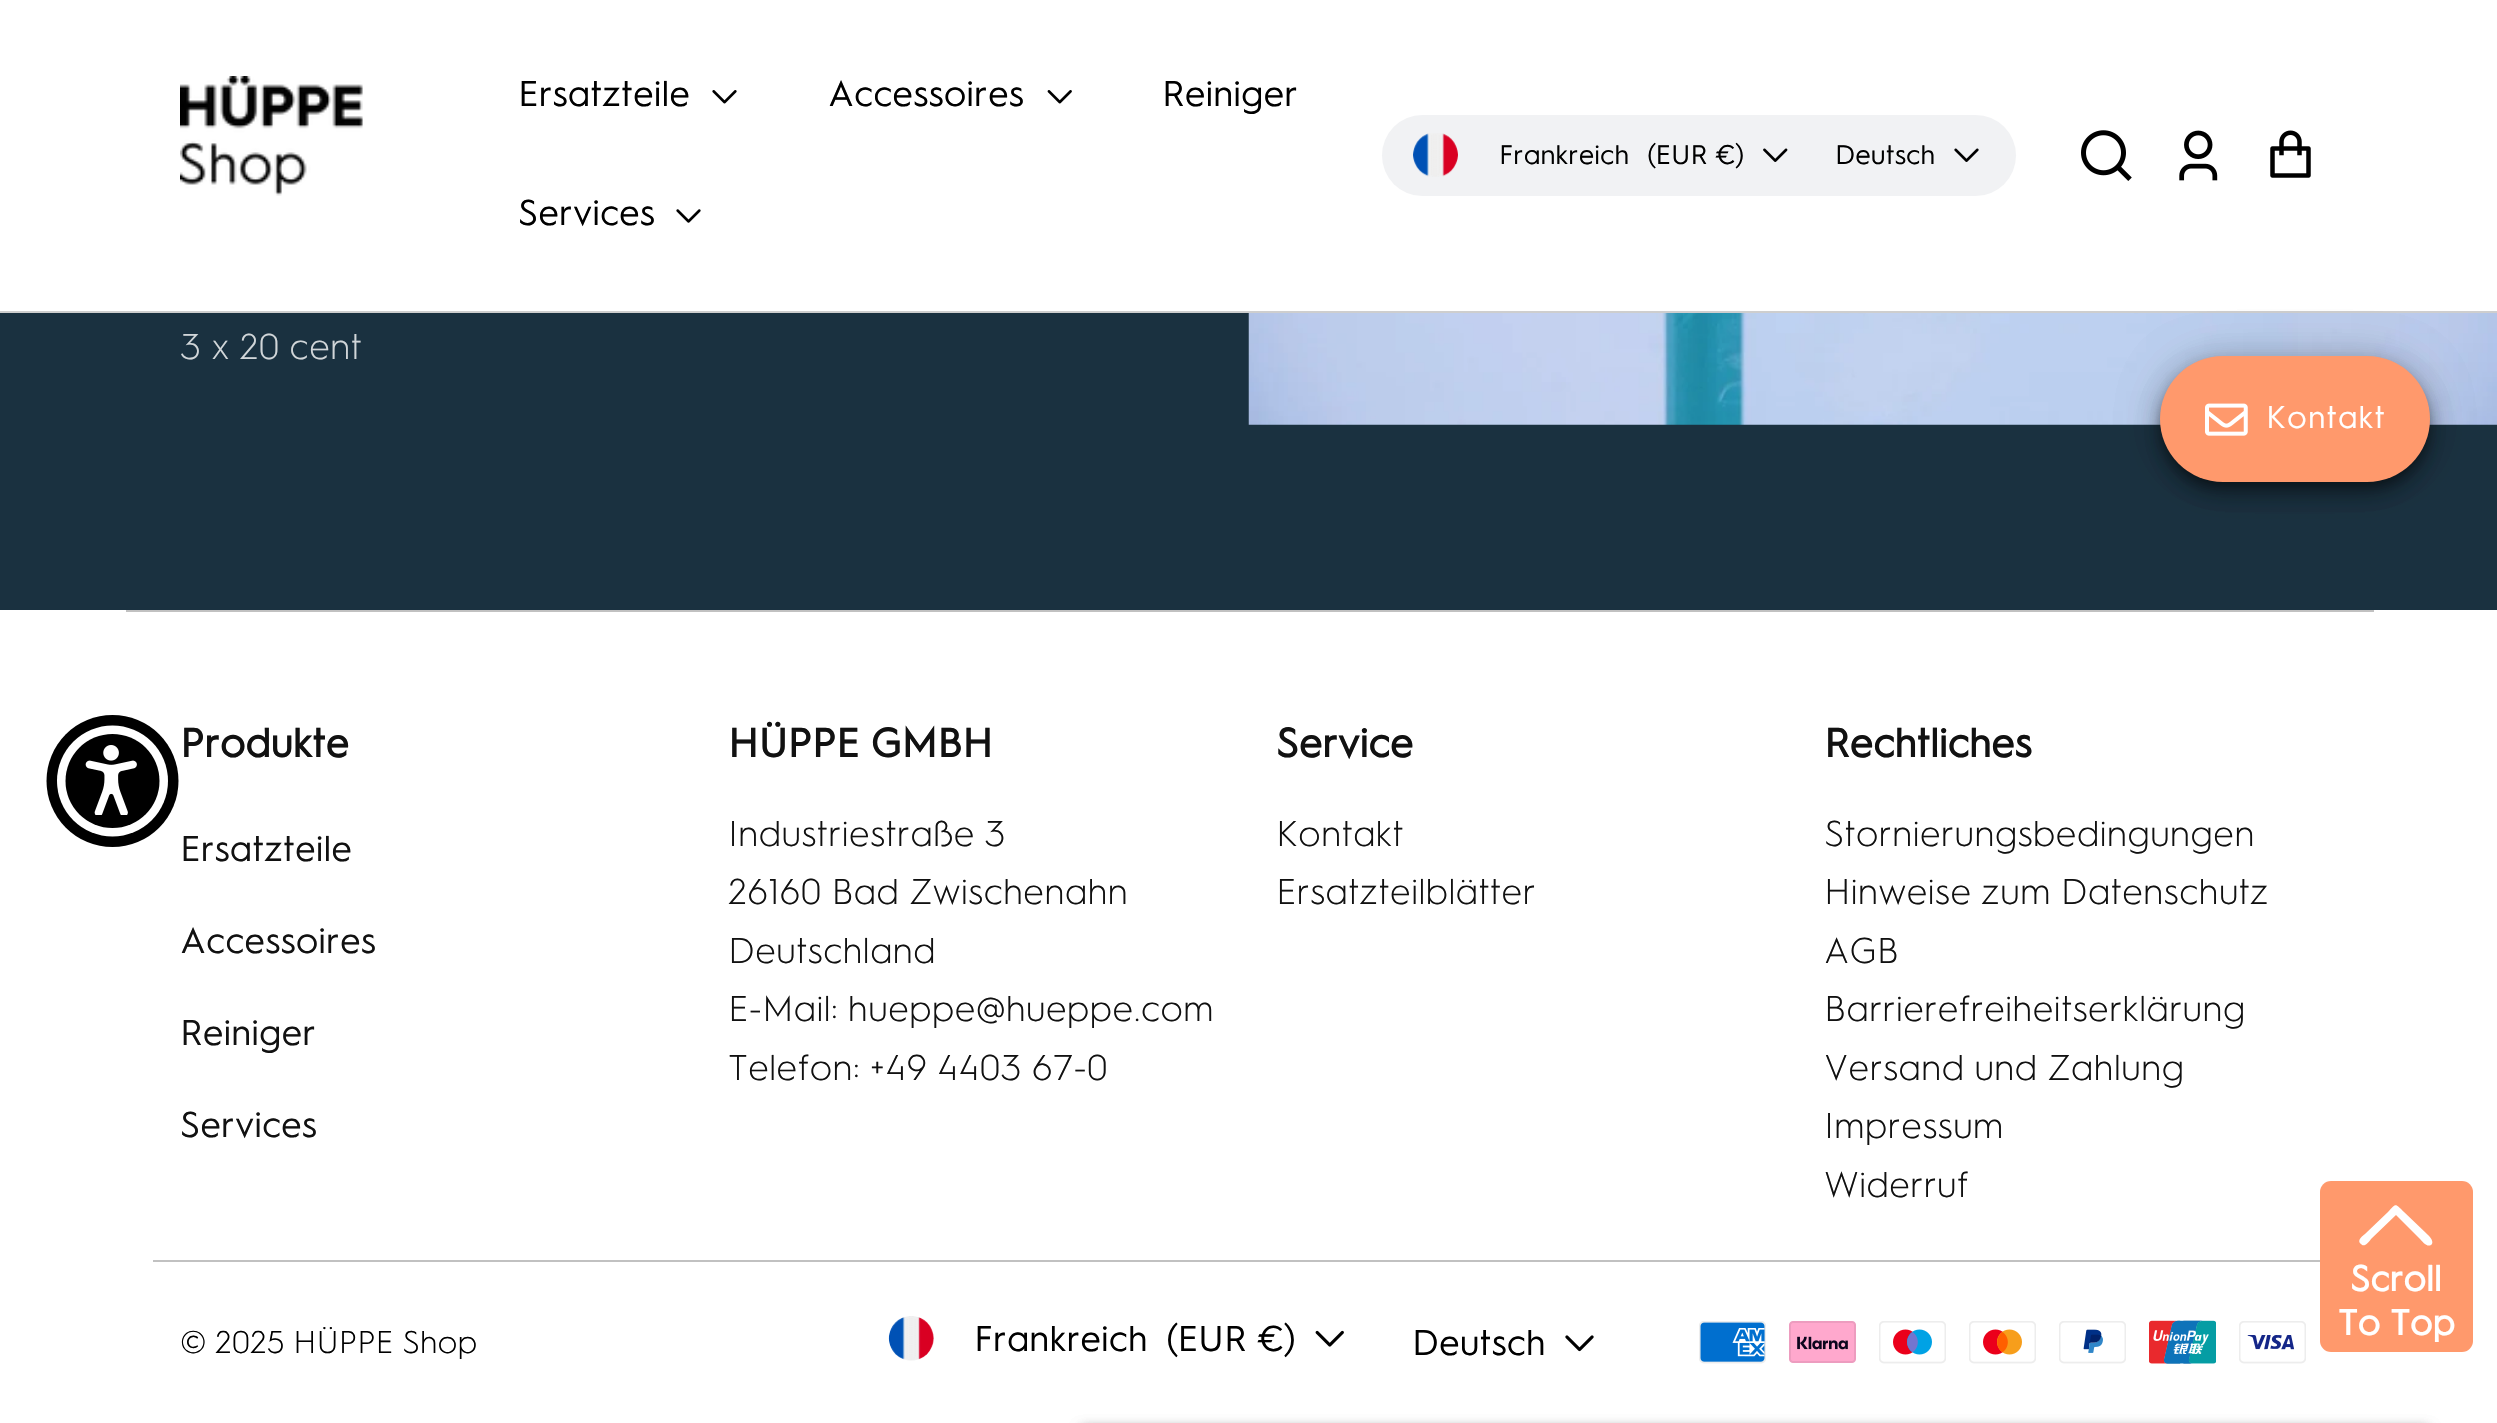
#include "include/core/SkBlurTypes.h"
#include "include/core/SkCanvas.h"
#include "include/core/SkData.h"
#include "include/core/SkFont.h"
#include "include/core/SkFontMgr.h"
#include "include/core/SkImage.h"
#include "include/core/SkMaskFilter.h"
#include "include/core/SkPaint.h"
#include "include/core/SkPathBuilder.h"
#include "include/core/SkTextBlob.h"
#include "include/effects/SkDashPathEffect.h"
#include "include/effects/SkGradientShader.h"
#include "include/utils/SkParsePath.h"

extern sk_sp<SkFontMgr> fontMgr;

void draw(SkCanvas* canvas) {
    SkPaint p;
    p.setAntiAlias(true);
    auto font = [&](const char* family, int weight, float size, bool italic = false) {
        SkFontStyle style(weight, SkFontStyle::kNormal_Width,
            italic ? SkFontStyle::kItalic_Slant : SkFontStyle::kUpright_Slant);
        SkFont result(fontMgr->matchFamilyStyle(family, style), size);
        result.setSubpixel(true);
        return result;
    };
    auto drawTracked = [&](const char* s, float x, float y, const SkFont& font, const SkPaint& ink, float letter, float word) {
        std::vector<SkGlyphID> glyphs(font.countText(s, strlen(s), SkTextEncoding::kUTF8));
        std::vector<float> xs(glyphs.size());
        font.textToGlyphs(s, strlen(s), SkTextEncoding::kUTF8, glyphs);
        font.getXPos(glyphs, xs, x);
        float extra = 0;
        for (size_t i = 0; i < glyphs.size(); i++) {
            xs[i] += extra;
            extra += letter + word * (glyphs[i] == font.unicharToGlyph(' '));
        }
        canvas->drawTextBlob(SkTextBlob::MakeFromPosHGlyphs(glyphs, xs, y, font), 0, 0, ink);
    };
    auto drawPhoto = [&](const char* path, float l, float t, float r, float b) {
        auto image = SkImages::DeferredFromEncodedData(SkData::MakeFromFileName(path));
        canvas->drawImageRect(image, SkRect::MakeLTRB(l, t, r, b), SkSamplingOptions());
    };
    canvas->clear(0xFFFFFFFF);
    p.setColor(0xFFCECECE);
    canvas->drawRect(SkRect::MakeLTRB(0, 311, 2497, 313), p);
    drawPhoto("media/1.png", 180, 76, 363, 196);
    auto font1 = font("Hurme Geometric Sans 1", 400, 36);
    p.setColor(0xFF000000);
    canvas->drawString("Ersatzteile", 518, 106, font1, p);
    drawPhoto("media/2.png", 712, 90, 737, 104);
    canvas->drawString("Accessoires", 828, 106, font1, p);
    drawPhoto("media/3.png", 1047, 90, 1072, 104);
    canvas->drawString("Reiniger", 1162, 106, font1, p);
    canvas->drawString("Services", 518, 225, font1, p);
    drawPhoto("media/4.png", 676, 209, 701, 223);
    p.setColor(0xFFF1F2F4);
    canvas->drawRoundRect(SkRect::MakeLTRB(1382, 115, 2016, 196), 40.5f, 40.5f, p);
    drawPhoto("media/5.png", 1413, 133, 1458, 177);
    auto font2 = font("Hurme Geometric Sans 1", 400, 27);
    p.setColor(0xFF000000);
    canvas->drawString("Frankreich", 1499, 164, font2, p);
    canvas->drawString("(EUR €)", 1647, 164, font2, p);
    drawPhoto("media/6.png", 1763, 148, 1788, 162);
    canvas->drawString("Deutsch", 1835, 164, font2, p);
    drawPhoto("media/7.png", 1954, 148, 1979, 162);
    drawPhoto("media/8.png", 2081, 130, 2132, 181);
    drawPhoto("media/9.png", 2179, 130, 2218, 181);
    drawPhoto("media/10.png", 2270, 130, 2311, 178);
    p.setColor(0xFF1A3140);
    canvas->drawRect(SkRect::MakeLTRB(0, 313, 2497, 610), p);
    auto font3 = font("Hurme Geometric Sans 1", 300, 36);
    p.setColor(0xFFD1D6D9);
    canvas->drawString("3 x 20 cent", 180, 359, font3, p);
    drawPhoto("media/11.png", 1248, 313, 2497, 425);
    p.setColor(0x1F000000);
    p.setMaskFilter(SkMaskFilter::MakeBlur(kNormal_SkBlurStyle, 20));
    canvas->drawRoundRect(SkRect::MakeLTRB(2160, 358, 2430, 484), 63, 63, p);
    p.setMaskFilter(nullptr);
    p.setColor(0x24000000);
    p.setMaskFilter(SkMaskFilter::MakeBlur(kNormal_SkBlurStyle, 11));
    canvas->drawRoundRect(SkRect::MakeLTRB(2160, 369, 2430, 495), 63, 63, p);
    p.setMaskFilter(nullptr);
    p.setColor(0x33000000);
    p.setMaskFilter(SkMaskFilter::MakeBlur(kNormal_SkBlurStyle, 5.5f));
    canvas->drawRoundRect(SkRect::MakeLTRB(2162, 365, 2428, 486), 60.5f, 60.5f, p);
    p.setMaskFilter(nullptr);
    p.setMaskFilter(SkMaskFilter::MakeBlur(kNormal_SkBlurStyle, 5.5f));
    canvas->drawRoundRect(SkRect::MakeLTRB(1080, 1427, 2430, 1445), 5, 5, p);
    p.setMaskFilter(nullptr);
    p.setColor(0x1F000000);
    p.setMaskFilter(SkMaskFilter::MakeBlur(kNormal_SkBlurStyle, 20));
    canvas->drawRoundRect(SkRect::MakeLTRB(2160, 358, 2430, 484), 63, 63, p);
    p.setMaskFilter(nullptr);
    p.setColor(0x24000000);
    p.setMaskFilter(SkMaskFilter::MakeBlur(kNormal_SkBlurStyle, 11));
    canvas->drawRoundRect(SkRect::MakeLTRB(2160, 369, 2430, 495), 63, 63, p);
    p.setMaskFilter(nullptr);
    p.setColor(0x33000000);
    p.setMaskFilter(SkMaskFilter::MakeBlur(kNormal_SkBlurStyle, 5.5f));
    canvas->drawRoundRect(SkRect::MakeLTRB(2162, 365, 2428, 486), 60.5f, 60.5f, p);
    p.setMaskFilter(nullptr);
    p.setColor(0xFFFF996C);
    canvas->drawRoundRect(SkRect::MakeLTRB(2160, 356, 2430, 482), 63, 63, p);
    drawPhoto("media/12.png", 2205, 403, 2248, 436);
    auto font4 = font("Hurme Geometric Sans 1", 400, 31.5f);
    p.setColor(0xFFFFFFFF);
    drawTracked("Kontakt", 2266, 428, font4, p, 1, 0);
    p.setColor(0x33000000);
    p.setMaskFilter(SkMaskFilter::MakeBlur(kNormal_SkBlurStyle, 5.5f));
    canvas->drawRoundRect(SkRect::MakeLTRB(1080, 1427, 2430, 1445), 5, 5, p);
    p.setMaskFilter(nullptr);
    p.setColor(0xFF000000);
    canvas->drawCircle(112.5f, 781, 66, p);
    p.setColor(0xFFFFFFFF);
    canvas->drawCircle(112.5f, 781, 55.5f, p);
    p.setColor(0xFF000000);
    canvas->drawCircle(112.5f, 781, 47, p);
    drawPhoto("media/13.png", 85, 745, 137, 815);
    p.setColor(0xFFC1C1C1);
    canvas->drawRect(SkRect::MakeLTRB(126, 610, 2374, 612), p);
    auto font5 = font("Hurme Geometric Sans 1", 700, 40.5f);
    p.setColor(0xFF111111);
    canvas->drawString("Produkte", 180, 757, font5, p);
    {
        const struct { const char* s; float x, y; } items[] = {
            {"Ersatzteile", 180, 861},
            {"Accessoires", 180, 953},
            {"Reiniger", 180, 1045},
            {"Services", 180, 1137},
        };
        for (auto [s, x, y] : items) {
            canvas->drawString(s, x, y, font1, p);
        }
    }
    canvas->drawString("HÜPPE GMBH", 728, 757, font5, p);
    {
        const struct { const char* s; float x, y; } items[] = {
            {"Industriestraße 3", 728, 846},
            {"26160 Bad Zwischenahn", 728, 904},
            {"Deutschland", 728, 963},
            {"E-Mail: hueppe@hueppe.com", 728, 1021},
            {"Telefon: +49 4403 67-0", 728, 1080},
        };
        for (auto [s, x, y] : items) {
            canvas->drawString(s, x, y, font3, p);
        }
    }
    canvas->drawString("Service", 1276, 757, font5, p);
    canvas->drawString("Kontakt", 1276, 846, font3, p);
    canvas->drawString("Ersatzteilblätter", 1276, 904, font3, p);
    canvas->drawString("Rechtliches", 1824, 757, font5, p);
    {
        const struct { const char* s; float x, y; } items[] = {
            {"Stornierungsbedingungen", 1824, 846},
            {"Hinweise zum Datenschutz", 1824, 904},
            {"AGB", 1824, 963},
            {"Barrierefreiheitserklärung", 1824, 1021},
            {"Versand und Zahlung", 1824, 1080},
            {"Impressum", 1824, 1138},
            {"Widerruf", 1824, 1197},
        };
        for (auto [s, x, y] : items) {
            canvas->drawString(s, x, y, font3, p);
        }
    }
    p.setColor(0xFFC1C1C1);
    canvas->drawRect(SkRect::MakeLTRB(153, 1260, 2320, 1262), p);
    auto font6 = font("Hurme Geometric Sans 1", 300, 31.5f);
    p.setColor(0xFF000000);
    canvas->drawString("© 2025 HÜPPE Shop", 180, 1353, font6, p);
    drawPhoto("media/14.png", 888, 1316, 934, 1361);
    canvas->drawString("Frankreich", 974, 1351, font1, p);
    canvas->drawString("(EUR €)", 1166, 1351, font1, p);
    drawPhoto("media/15.png", 1315, 1330, 1344, 1347);
    canvas->drawString("Deutsch", 1412, 1355, font1, p);
    drawPhoto("media/16.png", 1565, 1335, 1594, 1352);
    drawPhoto("media/17.png", 1699, 1321, 1766, 1364);
    drawPhoto("media/18.png", 1789, 1321, 1856, 1363);
    drawPhoto("media/19.png", 1879, 1321, 1946, 1364);
    drawPhoto("media/20.png", 1969, 1321, 2036, 1364);
    drawPhoto("media/21.png", 2059, 1321, 2126, 1364);
    drawPhoto("media/22.png", 2149, 1320, 2216, 1364);
    drawPhoto("media/23.png", 2239, 1321, 2306, 1364);
    p.setColor(0xFFFF996C);
    canvas->drawRoundRect(SkRect::MakeLTRB(2320, 1181, 2473, 1352), 11, 11, p);
    p.setColor(0xFFFFFFFF);
    canvas->drawPath(SkPathBuilder(SkPathFillType::kEvenOdd).moveTo(2361, 1244).cubicTo(2364, 1248, 2369, 1242, 2371, 1239).lineTo(2396, 1215).lineTo(2420, 1239).cubicTo(2422, 1241, 2428, 1249, 2432, 1244).cubicTo(2434, 1240, 2428, 1235, 2426, 1233).lineTo(2404, 1212).cubicTo(2395, 1203, 2396, 1203, 2388, 1212).lineTo(2366, 1233).cubicTo(2364, 1235, 2356, 1240, 2361, 1244).close().detach(), p);
    auto font7 = font("Hurme Geometric Sans 1", 700, 36);
    canvas->drawString("Scroll", 2350, 1291, font7, p);
    canvas->drawString("To Top", 2338, 1335, font7, p);
}
